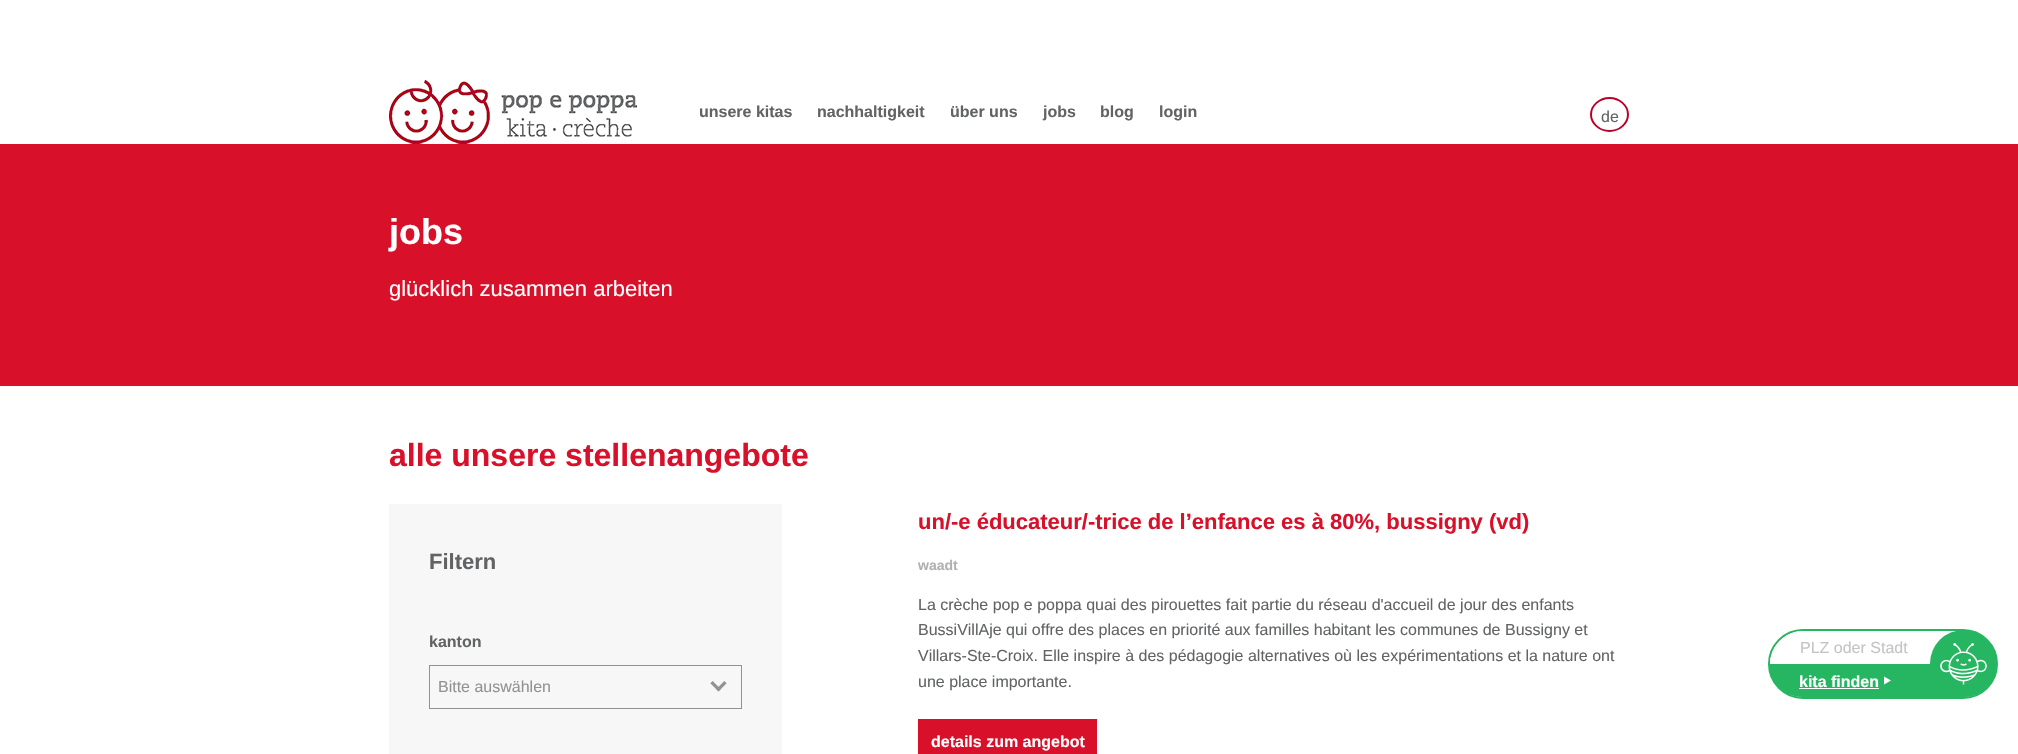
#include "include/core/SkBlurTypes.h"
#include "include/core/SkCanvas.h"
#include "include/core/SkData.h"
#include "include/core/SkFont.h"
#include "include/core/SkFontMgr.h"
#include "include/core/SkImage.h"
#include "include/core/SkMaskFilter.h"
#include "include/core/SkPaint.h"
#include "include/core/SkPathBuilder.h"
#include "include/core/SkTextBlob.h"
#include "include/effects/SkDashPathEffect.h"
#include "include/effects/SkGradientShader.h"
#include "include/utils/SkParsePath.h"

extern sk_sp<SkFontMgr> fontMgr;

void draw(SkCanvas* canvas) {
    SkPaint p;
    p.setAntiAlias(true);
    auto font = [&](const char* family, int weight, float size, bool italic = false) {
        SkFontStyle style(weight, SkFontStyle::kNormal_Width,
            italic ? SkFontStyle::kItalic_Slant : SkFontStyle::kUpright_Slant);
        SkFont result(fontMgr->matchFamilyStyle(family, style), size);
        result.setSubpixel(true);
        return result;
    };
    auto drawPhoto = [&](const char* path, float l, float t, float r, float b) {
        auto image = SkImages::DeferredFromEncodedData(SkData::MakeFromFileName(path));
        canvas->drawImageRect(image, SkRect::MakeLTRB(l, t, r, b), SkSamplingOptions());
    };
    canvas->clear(0xFFFFFFFF);
    drawPhoto("media/1.png", 389, 80, 637, 144);
    auto font1 = font("Liberation Sans", 700, 16);
    p.setColor(0xFF616365);
    {
        const struct { const char* s; float x, y; } items[] = {
            {"unsere kitas", 699, 117},
            {"nachhaltigkeit", 817, 117},
            {"über uns", 950, 117},
            {"jobs", 1043, 117},
            {"blog", 1100, 117},
            {"login", 1159, 117},
        };
        for (auto [s, x, y] : items) {
            canvas->drawString(s, x, y, font1, p);
        }
    }
    p.setStyle(SkPaint::kStroke_Style);
    p.setStrokeWidth(2);
    p.setColor(0xFFBA0029);
    canvas->drawPath(SkPathBuilder().moveTo(1609.5f, 98).cubicTo(1619.5f, 98, 1628, 105.5f, 1628, 114.5f).cubicTo(1628, 123.5f, 1619.5f, 131, 1609.5f, 131).cubicTo(1599.5f, 131, 1591, 123.5f, 1591, 114.5f).cubicTo(1591, 105.5f, 1599.5f, 98, 1609.5f, 98).close().detach(), p);
    auto font2 = font("Liberation Sans", 400, 16);
    p.setStyle(SkPaint::kFill_Style);
    p.setColor(0xFF616365);
    canvas->drawString("de", 1601, 122, font2, p);
    p.setColor(0xFFD9102A);
    canvas->drawRect(SkRect::MakeLTRB(0, 144, 2018, 386), p);
    auto font3 = font("Liberation Sans", 700, 36);
    p.setColor(0xFFFFFFFF);
    canvas->drawString("jobs", 389, 244, font3, p);
    auto font4 = font("Liberation Sans", 400, 22);
    canvas->drawString("glücklich zusammen arbeiten", 389, 296, font4, p);
    auto font5 = font("Liberation Sans", 700, 32);
    p.setColor(0xFFD9102A);
    canvas->drawString("alle unsere stellenangebote", 389, 466, font5, p);
    p.setColor(0xFFF7F7F7);
    canvas->drawRect(SkRect::MakeLTRB(389, 504, 782, 754), p);
    auto font6 = font("Liberation Sans", 700, 22);
    p.setColor(0xFF616365);
    canvas->drawString("Filtern", 429, 569, font6, p);
    canvas->drawString("kanton", 429, 647, font1, p);
    drawPhoto("media/2.png", 710, 681, 727, 692);
    p.setStyle(SkPaint::kStroke_Style);
    p.setStrokeWidth(1);
    p.setColor(0xFF909293);
    canvas->drawRect(SkRect::MakeLTRB(429.5f, 665.5f, 741.5f, 708.5f), p);
    p.setStyle(SkPaint::kFill_Style);
    canvas->drawString("Bitte auswählen", 438, 692, font2, p);
    p.setColor(0xFFD9102A);
    canvas->drawString("un/-e éducateur/-trice de l’enfance es à 80%, bussigny (vd)", 918, 529, font6, p);
    auto font7 = font("Liberation Sans", 700, 14);
    p.setColor(0xFFB0B1B2);
    canvas->drawString("waadt", 918, 570, font7, p);
    p.setColor(0xFF616365);
    {
        const struct { const char* s; float x, y; } items[] = {
            {"La crèche pop e poppa quai des pirouettes fait partie du réseau d'accueil de jour des enfants", 918, 610},
            {"BussiVillAje qui offre des places en priorité aux familles habitant les communes de Bussigny et", 918, 635},
            {"Villars-Ste-Croix. Elle inspire à des pédagogie alternatives où les expérimentations et la nature ont", 918, 661},
            {"une place importante.", 918, 687},
        };
        for (auto [s, x, y] : items) {
            canvas->drawString(s, x, y, font2, p);
        }
    }
    p.setColor(0xFFD9102A);
    canvas->drawRect(SkRect::MakeLTRB(918, 719, 1097, 754), p);
    p.setColor(0xFFFFFFFF);
    canvas->drawString("details zum angebot", 931, 747, font1, p);
    p.setStyle(SkPaint::kStroke_Style);
    p.setStrokeWidth(2);
    p.setColor(0xFF26B560);
    canvas->drawRoundRect(SkRect::MakeLTRB(1769, 630, 1997, 698), 34, 34, p);
    p.setStyle(SkPaint::kFill_Style);
    p.setColor(0xFFFFFFFF);
    canvas->drawPath(SkPathBuilder().moveTo(1803, 631).lineTo(1963, 631).cubicTo(1981, 631, 1996, 646, 1996, 664).lineTo(1770, 664).cubicTo(1770, 646, 1785, 631, 1803, 631).close().detach(), p);
    p.setColor(0xFFC4C4C4);
    canvas->drawString("PLZ oder Stadt", 1800, 653, font2, p);
    p.setColor(0xFF26B560);
    canvas->drawPath(SkPathBuilder().moveTo(1769, 664).lineTo(1996, 664).cubicTo(1996, 682, 1981, 697, 1963, 697).lineTo(1802, 697).cubicTo(1784, 697, 1769, 682, 1769, 664).close().detach(), p);
    p.setColor(0xFFFFFFFF);
    canvas->drawString("kita finden", 1799, 687, font1, p);
    canvas->drawRect(SkRect::MakeLTRB(1799, 688, 1879, 689), p);
    canvas->drawPath(SkPathBuilder().moveTo(1891, 680.5f).lineTo(1884, 684.5f).lineTo(1884, 676.5f).close().detach(), p);
    p.setColor(0xFF26B560);
    canvas->drawCircle(1963.5f, 663.5f, 33.5f, p);
    drawPhoto("media/3.png", 1940, 643, 1987, 685);
}
